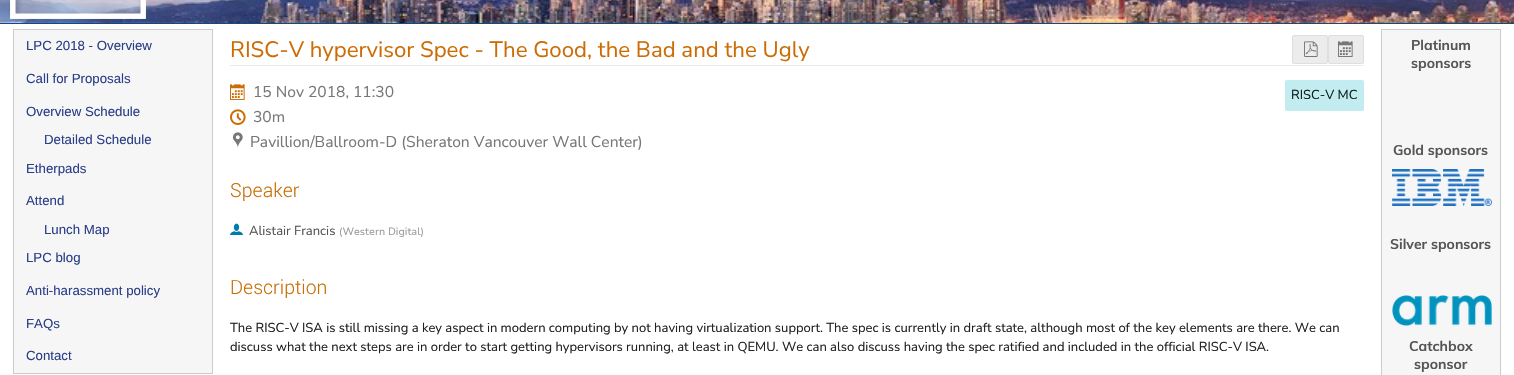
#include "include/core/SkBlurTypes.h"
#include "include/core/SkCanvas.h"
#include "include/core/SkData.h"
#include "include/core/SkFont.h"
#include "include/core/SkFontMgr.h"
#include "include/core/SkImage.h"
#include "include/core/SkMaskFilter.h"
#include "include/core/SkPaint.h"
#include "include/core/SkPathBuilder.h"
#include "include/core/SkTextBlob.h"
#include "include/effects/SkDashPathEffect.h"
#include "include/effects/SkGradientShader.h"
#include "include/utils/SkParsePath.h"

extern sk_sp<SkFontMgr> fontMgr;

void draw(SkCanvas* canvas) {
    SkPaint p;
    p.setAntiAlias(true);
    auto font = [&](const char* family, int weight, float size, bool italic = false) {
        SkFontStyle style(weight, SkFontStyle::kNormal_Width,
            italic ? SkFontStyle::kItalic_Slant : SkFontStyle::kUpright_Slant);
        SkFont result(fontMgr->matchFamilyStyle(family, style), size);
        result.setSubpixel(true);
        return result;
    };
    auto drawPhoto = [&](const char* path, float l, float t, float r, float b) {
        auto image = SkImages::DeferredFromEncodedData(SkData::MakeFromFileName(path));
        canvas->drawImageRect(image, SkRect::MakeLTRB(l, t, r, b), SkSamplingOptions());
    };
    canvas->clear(0xFFFFFFFF);
    drawPhoto("media/1.png", 0, 0, 1514, 23);
    p.setColor(0xFF0F4C80);
    canvas->drawRect(SkRect::MakeLTRB(0, 23, 1514, 24), p);
    drawPhoto("media/2.png", 10, 0, 146, 19);
    p.setColor(0xFFF6F6F6);
    canvas->drawRect(SkRect::MakeLTRB(13.5f, 29.5f, 212.5f, 373.5f), p);
    p.setStyle(SkPaint::kStroke_Style);
    p.setStrokeWidth(1);
    p.setColor(0xFFCCCCCC);
    canvas->drawRect(SkRect::MakeLTRB(13.5f, 29.5f, 212.5f, 373.5f), p);
    auto font1 = font("Liberation Sans", 400, 13.25f);
    p.setStyle(SkPaint::kFill_Style);
    p.setColor(0xFF2B3F88);
    {
        const struct { const char* s; float x, y; } items[] = {
            {"LPC 2018 - Overview", 26, 50},
            {"Call for Proposals", 26, 83},
            {"Overview Schedule", 26, 116},
            {"Detailed Schedule", 44, 144},
            {"Etherpads", 26, 173},
            {"Attend", 26, 205},
            {"Lunch Map", 44, 234},
            {"LPC blog", 26, 262},
            {"Anti-harassment policy", 26, 295},
            {"FAQs", 26, 328},
            {"Contact", 26, 360},
        };
        for (auto [s, x, y] : items) {
            canvas->drawString(s, x, y, font1, p);
        }
    }
    p.setColor(0xFFEBEBEB);
    canvas->drawRect(SkRect::MakeLTRB(230, 65, 1364, 66), p);
    auto font2 = font("Nunito Sans", 400, 22.25f);
    p.setColor(0xFFCB6D04);
    canvas->drawString("RISC-V hypervisor Spec - The Good, the Bad and the Ugly", 230, 57, font2, p);
    p.setColor(0xFFECECEC);
    canvas->drawRoundRect(SkRect::MakeLTRB(1292.5f, 35.5f, 1327.5f, 63.5f), 1.5f, 1.5f, p);
    p.setStyle(SkPaint::kStroke_Style);
    p.setColor(0xFFDFDFDF);
    canvas->drawRoundRect(SkRect::MakeLTRB(1292.5f, 35.5f, 1327.5f, 63.5f), 1.5f, 1.5f, p);
    drawPhoto("media/3.png", 1304, 41, 1318, 57);
    p.setStyle(SkPaint::kFill_Style);
    p.setColor(0xFFECECEC);
    canvas->drawRoundRect(SkRect::MakeLTRB(1328.5f, 35.5f, 1363.5f, 63.5f), 1.5f, 1.5f, p);
    p.setStyle(SkPaint::kStroke_Style);
    p.setColor(0xFFDFDFDF);
    canvas->drawRoundRect(SkRect::MakeLTRB(1328.5f, 35.5f, 1363.5f, 63.5f), 1.5f, 1.5f, p);
    drawPhoto("media/4.png", 1338, 41, 1353, 57);
    drawPhoto("media/5.png", 230, 84, 245, 100);
    auto font3 = font("Nunito Sans", 400, 15.6f);
    p.setStyle(SkPaint::kFill_Style);
    p.setColor(0xFF777777);
    canvas->drawString("15 Nov 2018, 11:30", 253, 97, font3, p);
    drawPhoto("media/6.png", 230, 109, 246, 125);
    canvas->drawString("30m", 253, 122, font3, p);
    drawPhoto("media/7.png", 232, 132, 243, 148);
    canvas->drawString("Pavillion/Ballroom-D (Sheraton Vancouver Wall Center)", 250, 147, font3, p);
    p.setColor(0xFFC2ECEF);
    canvas->drawRoundRect(SkRect::MakeLTRB(1285, 80, 1364, 111), 2, 2, p);
    auto font4 = font("Nunito Sans", 400, 13);
    p.setColor(0xFF0D1E1F);
    canvas->drawString("RISC-V MC", 1291, 99, font4, p);
    auto font5 = font("Roboto", 300, 19.5f);
    p.setColor(0xFFCB6D04);
    canvas->drawString("Speaker", 230, 197, font5, p);
    drawPhoto("media/8.png", 230, 223, 243, 235);
    p.setColor(0xFF555555);
    canvas->drawString("Alistair Francis", 249, 235, font4, p);
    auto font6 = font("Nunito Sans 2", 400, 10.5f);
    p.setColor(0xFF999999);
    canvas->drawString("(Western Digital)", 339, 235, font6, p);
    p.setColor(0xFFCB6D04);
    canvas->drawString("Description", 230, 294, font5, p);
    p.setColor(0xFF212121);
    canvas->drawString("The RISC-V ISA is still missing a key aspect in modern computing by not having virtualization support. The spec is currently in draft state, although most of the key elements are there. We can", 230, 332, font4, p);
    canvas->drawString("discuss what the next steps are in order to start getting hypervisors running, at least in QEMU. We can also discuss having the spec ratified and included in the official RISC-V ISA.", 230, 351, font4, p);
    p.setColor(0xFFF6F6F6);
    canvas->drawRect(SkRect::MakeLTRB(1381.5f, 29.5f, 1500.5f, 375.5f), p);
    p.setStyle(SkPaint::kStroke_Style);
    p.setColor(0xFFCCCCCC);
    canvas->drawRect(SkRect::MakeLTRB(1381.5f, 29.5f, 1500.5f, 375.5f), p);
    auto font7 = font("Mulish", 700, 14);
    p.setStyle(SkPaint::kFill_Style);
    p.setColor(0xFF555555);
    {
        const struct { const char* s; float x, y; } items[] = {
            {"Platinum", 1411, 50},
            {"sponsors", 1411, 68},
            {"Gold sponsors", 1393, 155},
        };
        for (auto [s, x, y] : items) {
            canvas->drawString(s, x, y, font7, p);
        }
    }
    drawPhoto("media/9.png", 1392, 169, 1492, 206);
    canvas->drawString("Silver sponsors", 1390, 249, font7, p);
    drawPhoto("media/10.png", 1392, 295, 1492, 326);
    canvas->drawString("Catchbox", 1409, 351, font7, p);
    canvas->drawString("sponsor", 1414, 369, font7, p);
}
